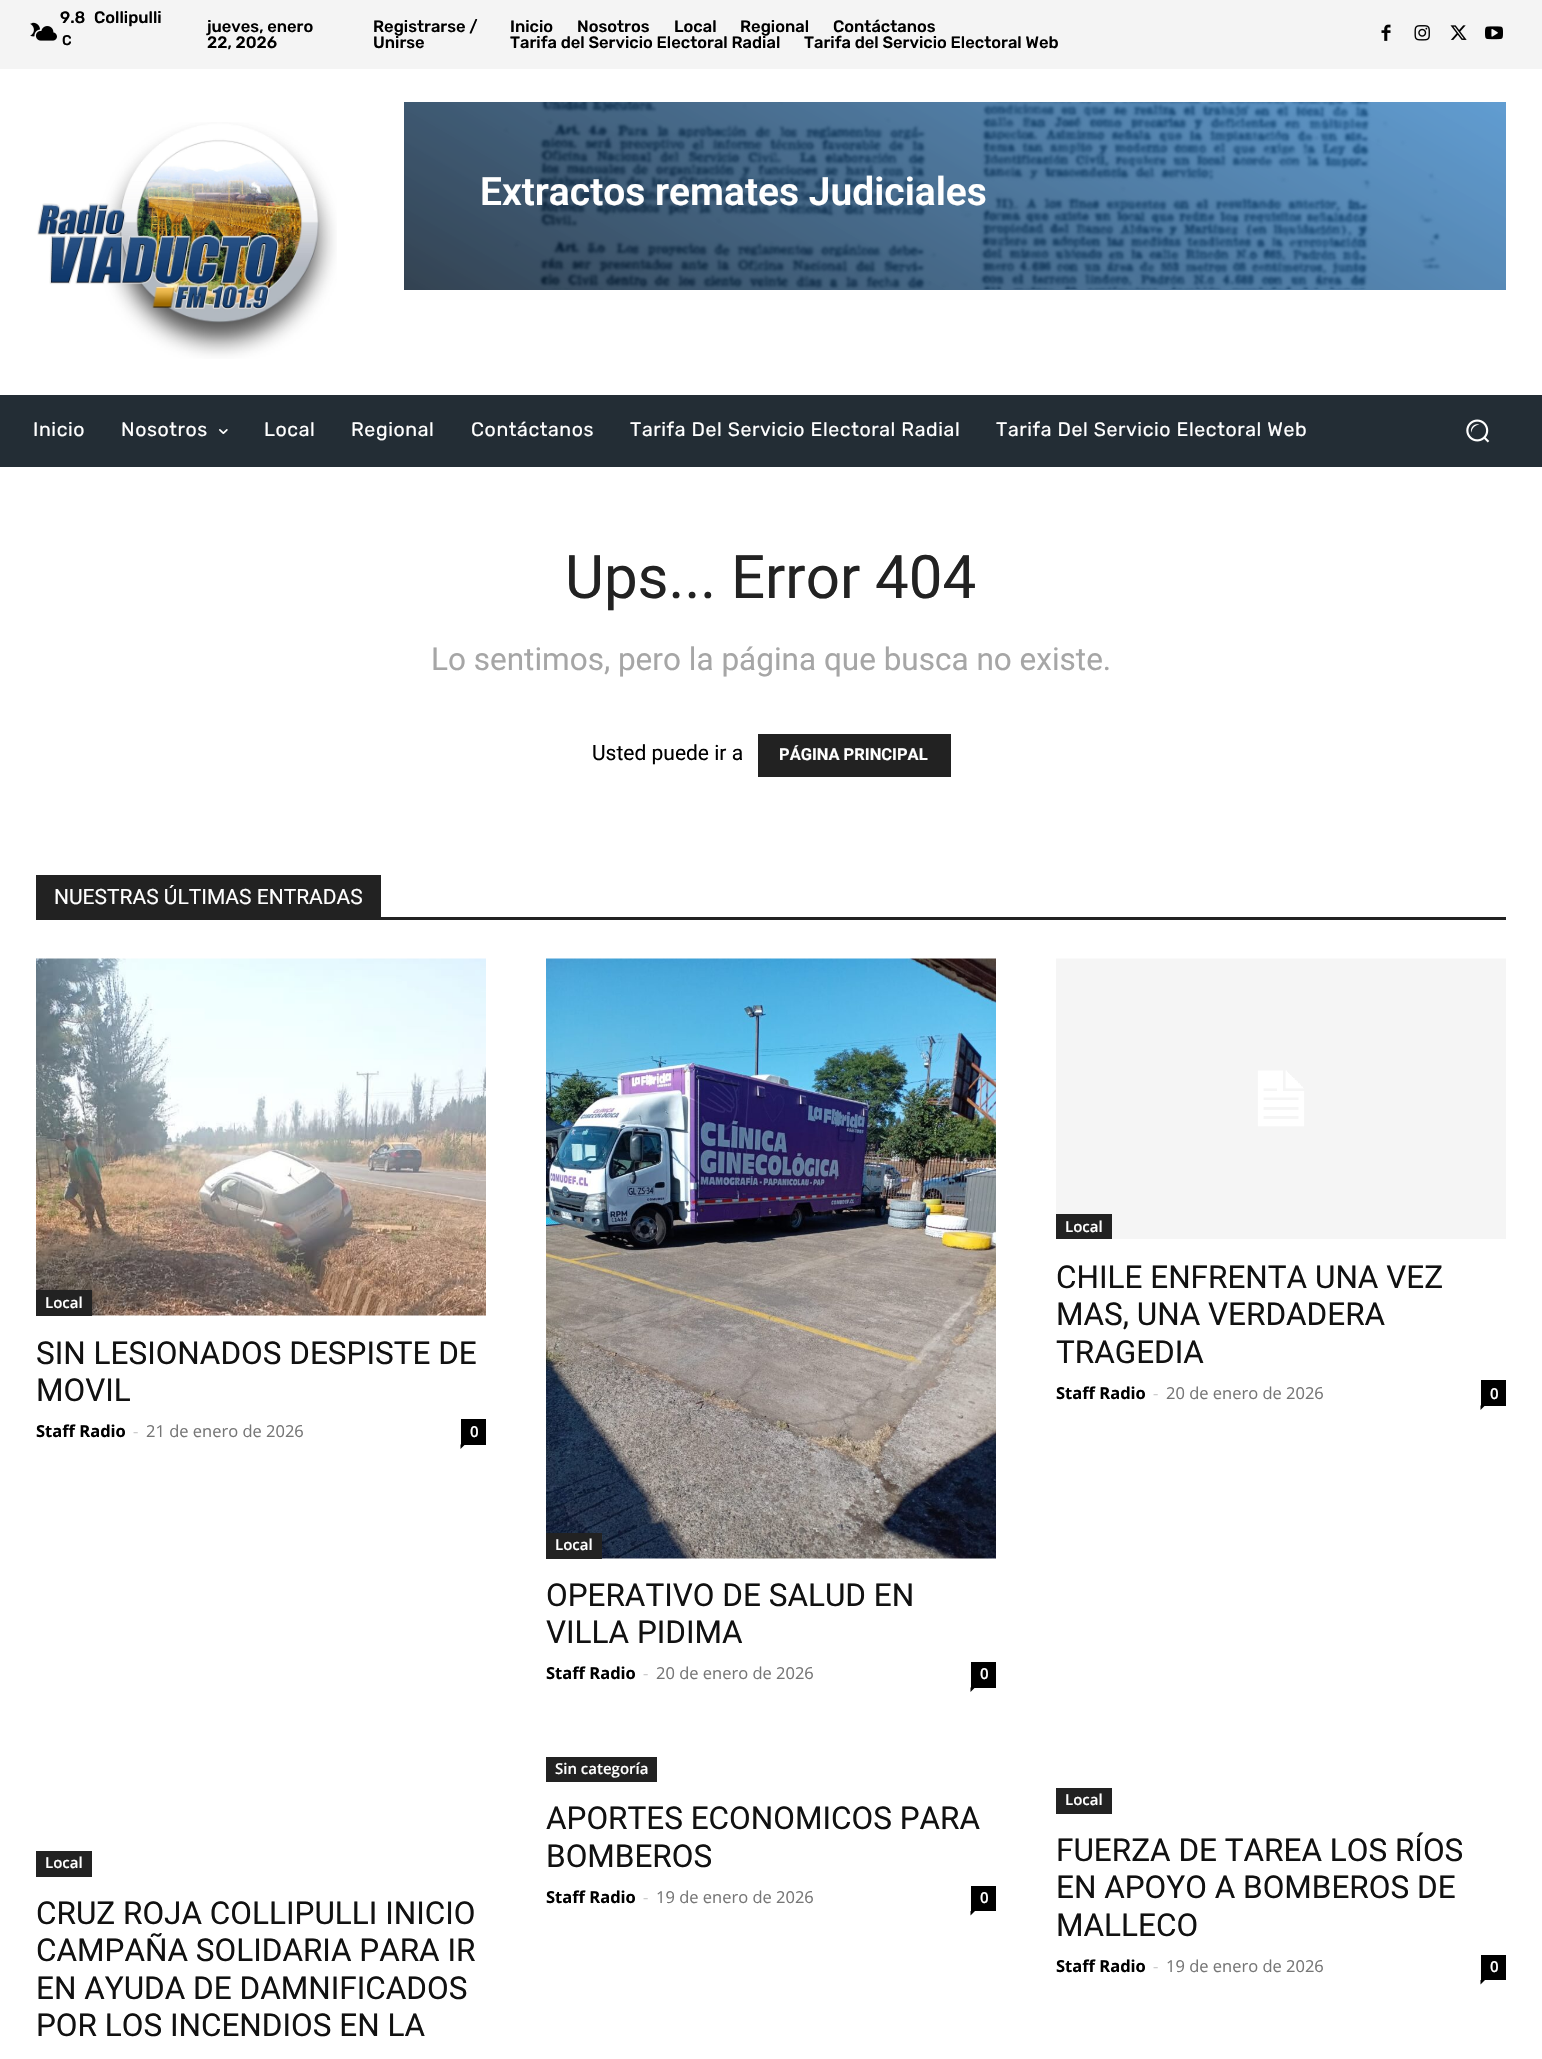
#include "include/core/SkBlurTypes.h"
#include "include/core/SkCanvas.h"
#include "include/core/SkData.h"
#include "include/core/SkFont.h"
#include "include/core/SkFontMgr.h"
#include "include/core/SkImage.h"
#include "include/core/SkMaskFilter.h"
#include "include/core/SkPaint.h"
#include "include/core/SkPathBuilder.h"
#include "include/core/SkTextBlob.h"
#include "include/effects/SkDashPathEffect.h"
#include "include/effects/SkGradientShader.h"
#include "include/utils/SkParsePath.h"

extern sk_sp<SkFontMgr> fontMgr;

void draw(SkCanvas* canvas) {
    SkPaint p;
    p.setAntiAlias(true);
    auto font = [&](const char* family, int weight, float size, bool italic = false) {
        SkFontStyle style(weight, SkFontStyle::kNormal_Width,
            italic ? SkFontStyle::kItalic_Slant : SkFontStyle::kUpright_Slant);
        SkFont result(fontMgr->matchFamilyStyle(family, style), size);
        result.setSubpixel(true);
        return result;
    };
    auto drawTracked = [&](const char* s, float x, float y, const SkFont& font, const SkPaint& ink, float letter, float word) {
        std::vector<SkGlyphID> glyphs(font.countText(s, strlen(s), SkTextEncoding::kUTF8));
        std::vector<float> xs(glyphs.size());
        font.textToGlyphs(s, strlen(s), SkTextEncoding::kUTF8, glyphs);
        font.getXPos(glyphs, xs, x);
        float extra = 0;
        for (size_t i = 0; i < glyphs.size(); i++) {
            xs[i] += extra;
            extra += letter + word * (glyphs[i] == font.unicharToGlyph(' '));
        }
        canvas->drawTextBlob(SkTextBlob::MakeFromPosHGlyphs(glyphs, xs, y, font), 0, 0, ink);
    };
    auto drawPhoto = [&](const char* path, float l, float t, float r, float b) {
        auto image = SkImages::DeferredFromEncodedData(SkData::MakeFromFileName(path));
        canvas->drawImageRect(image, SkRect::MakeLTRB(l, t, r, b), SkSamplingOptions());
    };
    canvas->clear(0xFFFFFFFF);
    p.setColor(0xFFF4F4F4);
    canvas->drawRect(SkRect::MakeLTRB(0, 0, 1542, 69), p);
    auto font1 = font("Rubik", 500, 16.5f);
    p.setColor(0xFF000000);
    canvas->drawString("9.8", 60, 23, font1, p);
    auto font2 = font("Rubik", 500, 14);
    canvas->drawString("C", 62, 45, font2, p);
    canvas->drawString("Collipulli", 94, 23, font1, p);
    drawPhoto("media/1.png", 30, 22, 57, 41);
    {
        const struct { const char* s; float x, y; } items[] = {
            {"jueves, enero", 207, 32},
            {"22, 2026", 207, 48},
            {"Registrarse /", 373, 32},
            {"Unirse", 373, 48},
            {"Inicio", 510, 32},
            {"Nosotros", 577, 32},
            {"Local", 674, 32},
            {"Regional", 740, 32},
            {"Contáctanos", 833, 32},
            {"Tarifa del Servicio Electoral Radial", 510, 48},
            {"Tarifa del Servicio Electoral Web", 804, 48},
        };
        for (auto [s, x, y] : items) {
            canvas->drawString(s, x, y, font1, p);
        }
    }
    drawPhoto("media/2.png", 1381, 24, 1391, 41);
    drawPhoto("media/3.png", 1414, 25, 1430, 41);
    drawPhoto("media/4.png", 1450, 25, 1467, 40);
    drawPhoto("media/5.png", 1485, 26, 1503, 40);
    drawPhoto("media/6.png", 37, 122, 337, 359);
    drawPhoto("media/7.png", 503, 102, 1442, 290);
    {
        const SkColor colors[] = {0xCC001326, 0xB31E73BE};
        const float stops[] = {0, 1};
        const SkPoint ends[] = {{776, 505}, {1133, -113}};
        p.setShader(SkGradientShader::MakeLinear(ends, colors, stops, 2, SkTileMode::kClamp));
        p.setAlpha(255);
    }
    canvas->drawRect(SkRect::MakeLTRB(404, 102, 1506, 290), p);
    auto font3 = font("Roboto", 600, 39);
    p.setShader(nullptr);
    p.setColor(0xFFFFFFFF);
    canvas->drawString("Extractos remates Judiciales", 480, 205, font3, p);
    p.setColor(0xFF232D35);
    canvas->drawRect(SkRect::MakeLTRB(0, 395, 1542, 467), p);
    auto font4 = font("Rubik", 400, 19.5f);
    p.setColor(0xFFFFFFFF);
    drawTracked("Inicio", 33, 436, font4, p, 0.6f, 0);
    drawTracked("Nosotros", 121, 436, font4, p, 0.6f, 0);
    drawPhoto("media/8.png", 219, 429, 228, 435);
    {
        const struct { const char* s; float x, y; } items[] = {
            {"Local", 264, 436},
            {"Regional", 351, 436},
            {"Contáctanos", 471, 436},
            {"Tarifa Del Servicio Electoral Radial", 630, 436},
            {"Tarifa Del Servicio Electoral Web", 996, 436},
        };
        for (auto [s, x, y] : items) {
            drawTracked(s, x, y, font4, p, 0.6f, 0);
        }
    }
    drawPhoto("media/9.png", 1466, 419, 1490, 443);
    auto font5 = font("Roboto", 400, 60);
    p.setColor(0xFF222222);
    canvas->drawString("Ups... Error 404", 565, 598, font5, p);
    auto font6 = font("Roboto", 400, 31.5f);
    p.setColor(0xFFA6A6A6);
    canvas->drawString("Lo sentimos, pero la página que busca no existe.", 431, 670, font6, p);
    auto font7 = font("Roboto", 400, 21);
    p.setColor(0xFF000000);
    canvas->drawString("Usted puede ir a", 592, 760, font7, p);
    p.setColor(0xFF222222);
    canvas->drawRect(SkRect::MakeLTRB(758, 734, 951, 777), p);
    auto font8 = font("Roboto", 700, 16.5f);
    p.setColor(0xFFFFFFFF);
    canvas->drawString("PÁGINA PRINCIPAL", 779, 760, font8, p);
    p.setColor(0xFF222222);
    canvas->drawRect(SkRect::MakeLTRB(36, 917, 1506, 920), p);
    canvas->drawRect(SkRect::MakeLTRB(36, 875, 381, 917), p);
    p.setColor(0xFFFFFFFF);
    canvas->drawString("NUESTRAS ÚLTIMAS ENTRADAS", 54, 904, font7, p);
    drawPhoto("media/10.png", 36, 958, 486, 1316);
    p.setColor(0xFF222222);
    canvas->drawRect(SkRect::MakeLTRB(36, 1290, 92, 1316), p);
    auto font9 = font("Open Sans", 600, 15);
    p.setColor(0xFFFFFFFF);
    canvas->drawString("Local", 45, 1308, font9, p);
    p.setColor(0xFF111111);
    canvas->drawString("SIN LESIONADOS DESPISTE DE", 36, 1364, font6, p);
    canvas->drawString("MOVIL", 36, 1401, font6, p);
    auto font10 = font("Open Sans", 700, 16.5f);
    p.setColor(0xFF000000);
    canvas->drawString("Staff Radio", 36, 1437, font10, p);
    auto font11 = font("Open Sans", 400, 16.5f);
    p.setColor(0xFFCCCCCC);
    canvas->drawString("-", 133, 1437, font11, p);
    p.setColor(0xFF767676);
    canvas->drawString("21 de enero de 2026", 146, 1437, font11, p);
    p.setColor(0xFF000000);
    canvas->drawRect(SkRect::MakeLTRB(461, 1419, 486, 1445), p);
    p.setColor(0xFFFFFFFF);
    canvas->drawString("0", 470, 1437, font9, p);
    p.setColor(0xFF000000);
    canvas->drawPath(SkPathBuilder().moveTo(460.5f, 1444.5f).lineTo(465, 1444.5f).lineTo(460.5f, 1449).close().detach(), p);
    drawPhoto("media/11.png", 1056, 958, 1506, 1239);
    p.setColor(0xFF222222);
    canvas->drawRect(SkRect::MakeLTRB(1056, 1214, 1112, 1239), p);
    p.setColor(0xFFFFFFFF);
    canvas->drawString("Local", 1065, 1232, font9, p);
    p.setColor(0xFF111111);
    {
        const struct { const char* s; float x, y; } items[] = {
            {"CHILE ENFRENTA UNA VEZ", 1056, 1288},
            {"MAS, UNA VERDADERA", 1056, 1325},
            {"TRAGEDIA", 1056, 1363},
        };
        for (auto [s, x, y] : items) {
            canvas->drawString(s, x, y, font6, p);
        }
    }
    p.setColor(0xFF000000);
    canvas->drawString("Staff Radio", 1056, 1399, font10, p);
    p.setColor(0xFFCCCCCC);
    canvas->drawString("-", 1153, 1399, font11, p);
    p.setColor(0xFF767676);
    canvas->drawString("20 de enero de 2026", 1166, 1399, font11, p);
    p.setColor(0xFF000000);
    canvas->drawRect(SkRect::MakeLTRB(1481, 1380, 1506, 1406), p);
    p.setColor(0xFFFFFFFF);
    canvas->drawString("0", 1490, 1399, font9, p);
    p.setColor(0xFF000000);
    canvas->drawPath(SkPathBuilder().moveTo(1480.5f, 1405.5f).lineTo(1485, 1405.5f).lineTo(1480.5f, 1410).close().detach(), p);
    drawPhoto("media/12.png", 546, 958, 996, 1559);
    p.setColor(0xFF222222);
    canvas->drawRect(SkRect::MakeLTRB(546, 1533, 602, 1559), p);
    p.setColor(0xFFFFFFFF);
    canvas->drawString("Local", 555, 1550, font9, p);
    p.setColor(0xFF111111);
    canvas->drawString("OPERATIVO DE SALUD EN", 546, 1606, font6, p);
    canvas->drawString("VILLA PIDIMA", 546, 1643, font6, p);
    p.setColor(0xFF000000);
    canvas->drawString("Staff Radio", 546, 1679, font10, p);
    p.setColor(0xFFCCCCCC);
    canvas->drawString("-", 643, 1679, font11, p);
    p.setColor(0xFF767676);
    canvas->drawString("20 de enero de 2026", 656, 1679, font11, p);
    p.setColor(0xFF000000);
    canvas->drawRect(SkRect::MakeLTRB(971, 1662, 996, 1688), p);
    p.setColor(0xFFFFFFFF);
    canvas->drawString("0", 980, 1679, font9, p);
    p.setColor(0xFF000000);
    canvas->drawPath(SkPathBuilder().moveTo(970.5f, 1687.5f).lineTo(975, 1687.5f).lineTo(970.5f, 1692).close().detach(), p);
    p.setColor(0xFF222222);
    canvas->drawRect(SkRect::MakeLTRB(36, 1851, 92, 1877), p);
    p.setColor(0xFFFFFFFF);
    canvas->drawString("Local", 45, 1868, font9, p);
    p.setColor(0xFF111111);
    {
        const struct { const char* s; float x, y; } items[] = {
            {"CRUZ ROJA COLLIPULLI INICIO", 36, 1924},
            {"CAMPAÑA SOLIDARIA PARA IR", 36, 1961},
            {"EN AYUDA DE DAMNIFICADOS", 36, 1999},
            {"POR LOS INCENDIOS EN LA", 36, 2036},
        };
        for (auto [s, x, y] : items) {
            canvas->drawString(s, x, y, font6, p);
        }
    }
    p.setColor(0xFF222222);
    canvas->drawRect(SkRect::MakeLTRB(546, 1757, 657, 1782), p);
    p.setColor(0xFFFFFFFF);
    canvas->drawString("Sin categoría", 555, 1774, font9, p);
    p.setColor(0xFF111111);
    canvas->drawString("APORTES ECONOMICOS PARA", 546, 1829, font6, p);
    canvas->drawString("BOMBEROS", 546, 1867, font6, p);
    p.setColor(0xFF000000);
    canvas->drawString("Staff Radio", 546, 1903, font10, p);
    p.setColor(0xFFCCCCCC);
    canvas->drawString("-", 643, 1903, font11, p);
    p.setColor(0xFF767676);
    canvas->drawString("19 de enero de 2026", 656, 1903, font11, p);
    p.setColor(0xFF000000);
    canvas->drawRect(SkRect::MakeLTRB(971, 1886, 996, 1911), p);
    p.setColor(0xFFFFFFFF);
    canvas->drawString("0", 980, 1903, font9, p);
    p.setColor(0xFF000000);
    canvas->drawPath(SkPathBuilder().moveTo(970.5f, 1911).lineTo(975, 1911).lineTo(970.5f, 1915.5f).close().detach(), p);
    p.setColor(0xFF222222);
    canvas->drawRect(SkRect::MakeLTRB(1056, 1788, 1112, 1814), p);
    p.setColor(0xFFFFFFFF);
    canvas->drawString("Local", 1065, 1805, font9, p);
    p.setColor(0xFF111111);
    {
        const struct { const char* s; float x, y; } items[] = {
            {"FUERZA DE TAREA LOS RÍOS", 1056, 1861},
            {"EN APOYO A BOMBEROS DE", 1056, 1898},
            {"MALLECO", 1056, 1936},
        };
        for (auto [s, x, y] : items) {
            canvas->drawString(s, x, y, font6, p);
        }
    }
    p.setColor(0xFF000000);
    canvas->drawString("Staff Radio", 1056, 1972, font10, p);
    p.setColor(0xFFCCCCCC);
    canvas->drawString("-", 1153, 1972, font11, p);
    p.setColor(0xFF767676);
    canvas->drawString("19 de enero de 2026", 1166, 1972, font11, p);
    p.setColor(0xFF000000);
    canvas->drawRect(SkRect::MakeLTRB(1481, 1955, 1506, 1980), p);
    p.setColor(0xFFFFFFFF);
    canvas->drawString("0", 1490, 1972, font9, p);
    p.setColor(0xFF000000);
    canvas->drawPath(SkPathBuilder().moveTo(1480.5f, 1980).lineTo(1485, 1980).lineTo(1480.5f, 1984.5f).close().detach(), p);
}
